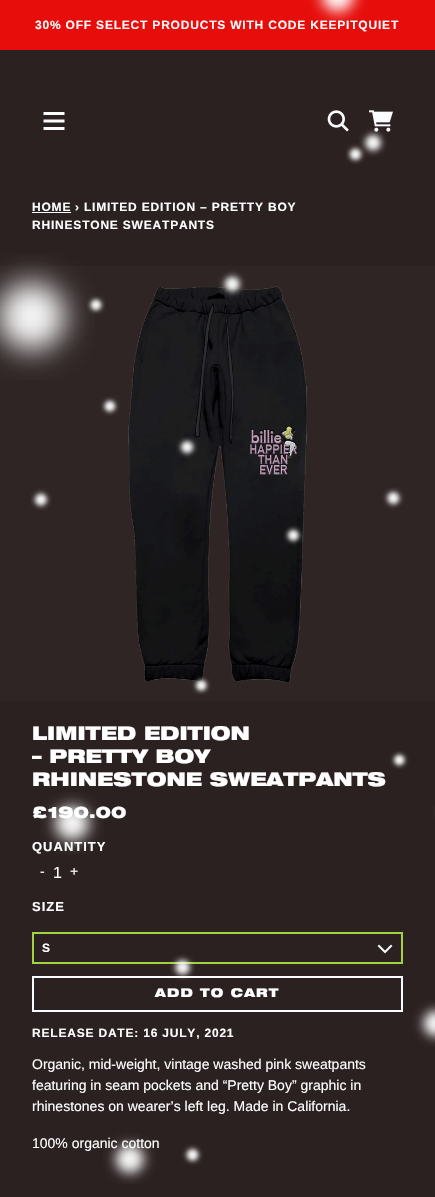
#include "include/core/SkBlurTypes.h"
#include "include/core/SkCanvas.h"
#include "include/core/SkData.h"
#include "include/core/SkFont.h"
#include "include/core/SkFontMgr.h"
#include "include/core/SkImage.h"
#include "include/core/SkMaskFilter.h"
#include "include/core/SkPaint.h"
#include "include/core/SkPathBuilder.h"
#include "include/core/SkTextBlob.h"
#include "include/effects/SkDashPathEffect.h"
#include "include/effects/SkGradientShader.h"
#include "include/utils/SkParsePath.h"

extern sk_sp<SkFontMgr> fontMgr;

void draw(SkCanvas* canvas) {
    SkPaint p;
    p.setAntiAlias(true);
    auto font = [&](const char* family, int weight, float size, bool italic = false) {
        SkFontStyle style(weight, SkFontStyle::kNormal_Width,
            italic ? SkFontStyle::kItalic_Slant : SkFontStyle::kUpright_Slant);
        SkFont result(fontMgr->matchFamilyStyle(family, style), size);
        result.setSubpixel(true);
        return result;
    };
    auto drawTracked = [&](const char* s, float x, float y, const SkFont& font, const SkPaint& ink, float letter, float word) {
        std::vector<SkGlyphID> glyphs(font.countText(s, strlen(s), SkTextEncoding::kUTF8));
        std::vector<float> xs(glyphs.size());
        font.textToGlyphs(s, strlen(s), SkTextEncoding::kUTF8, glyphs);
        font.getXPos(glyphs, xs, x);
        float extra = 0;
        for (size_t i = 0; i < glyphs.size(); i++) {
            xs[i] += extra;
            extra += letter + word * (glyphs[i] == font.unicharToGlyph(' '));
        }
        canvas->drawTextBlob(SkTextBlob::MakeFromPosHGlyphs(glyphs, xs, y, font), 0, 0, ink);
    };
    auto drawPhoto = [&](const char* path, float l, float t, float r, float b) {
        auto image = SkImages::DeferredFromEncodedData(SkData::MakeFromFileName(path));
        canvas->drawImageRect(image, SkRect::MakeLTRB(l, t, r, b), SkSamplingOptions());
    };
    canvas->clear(0xFF2C2121);
    p.setColor(0xFFE60D0A);
    canvas->drawRect(SkRect::MakeLTRB(0, 0, 435, 50), p);
    auto font1 = font("Liberation Sans", 700, 12);
    p.setColor(0xFFF9FAFB);
    drawTracked("30% OFF SELECT PRODUCTS WITH CODE KEEPITQUIET", 35, 29, font1, p, 0.8f, 0);
    drawPhoto("media/2.png", 43, 112, 65, 130);
    drawPhoto("media/3.png", 327, 110, 349, 132);
    drawPhoto("media/4.png", 369, 110, 393, 132);
    p.setColor(0xFFFFFFFF);
    drawTracked("HOME", 32, 211, font1, p, 0.8f, 0);
    canvas->drawRect(SkRect::MakeLTRB(32, 212, 71, 213), p);
    drawTracked("› LIMITED EDITION – PRETTY BOY", 75, 211, font1, p, 0.8f, 0);
    drawTracked("RHINESTONE SWEATPANTS", 32, 229, font1, p, 0.8f, 0);
    p.setColor(0xFF2F2525);
    canvas->drawRect(SkRect::MakeLTRB(0, 266, 435, 701), p);
    drawPhoto("media/5.png", 128, 286, 307, 683);
    auto font2 = font("Helvetica Neue", 900, 19);
    p.setColor(0xFFFFFFFF);
    {
        const struct { const char* s; float x, y; } items[] = {
            {"LIMITED EDITION", 32, 740},
            {"– PRETTY BOY", 32, 763},
            {"RHINESTONE SWEATPANTS", 32, 786},
        };
        for (auto [s, x, y] : items) {
            canvas->drawString(s, x, y, font2, p);
        }
    }
    auto font3 = font("Helvetica Neue", 900, 16);
    canvas->drawString("£190.00", 32, 818, font3, p);
    auto font4 = font("Liberation Sans", 700, 13);
    drawTracked("QUANTITY", 32, 851, font4, p, 1, 0);
    auto font5 = font("Liberation Sans", 400, 14);
    canvas->drawString("-", 40, 876, font5, p);
    auto font6 = font("Liberation Sans", 400, 16);
    canvas->drawString("1", 53, 878, font6, p);
    canvas->drawString("+", 70, 876, font5, p);
    drawTracked("SIZE", 32, 911, font4, p, 1, 0);
    p.setStyle(SkPaint::kStroke_Style);
    p.setStrokeWidth(2);
    p.setColor(0xFFA2D142);
    canvas->drawRect(SkRect::MakeLTRB(33, 933, 402, 963), p);
    p.setStyle(SkPaint::kFill_Style);
    p.setColor(0xFFFFFFFF);
    drawTracked("S", 42, 952, font1, p, 1, 0);
    drawPhoto("media/6.png", 377, 944, 393, 954);
    p.setStyle(SkPaint::kStroke_Style);
    p.setColor(0xFFFAFCFF);
    canvas->drawRect(SkRect::MakeLTRB(33, 977, 402, 1011), p);
    auto font7 = font("Helvetica Neue", 900, 12);
    p.setStyle(SkPaint::kFill_Style);
    p.setColor(0xFFFFFFFF);
    drawTracked("ADD TO CART", 155, 997, font7, p, 1.25f, 0);
    drawTracked("RELEASE DATE: 16 JULY, 2021", 32, 1037, font1, p, 0.8f, 0);
    {
        const struct { const char* s; float x, y; } items[] = {
            {"Organic, mid-weight, vintage washed pink sweatpants", 32, 1069},
            {"featuring in seam pockets and “Pretty Boy” graphic in", 32, 1090},
            {"rhinestones on wearer’s left leg. Made in California.", 32, 1111},
            {"100% organic cotton", 32, 1148},
        };
        for (auto [s, x, y] : items) {
            canvas->drawString(s, x, y, font5, p);
        }
    }
    drawPhoto("media/1.png", 0, 0, 435, 1184);
}
